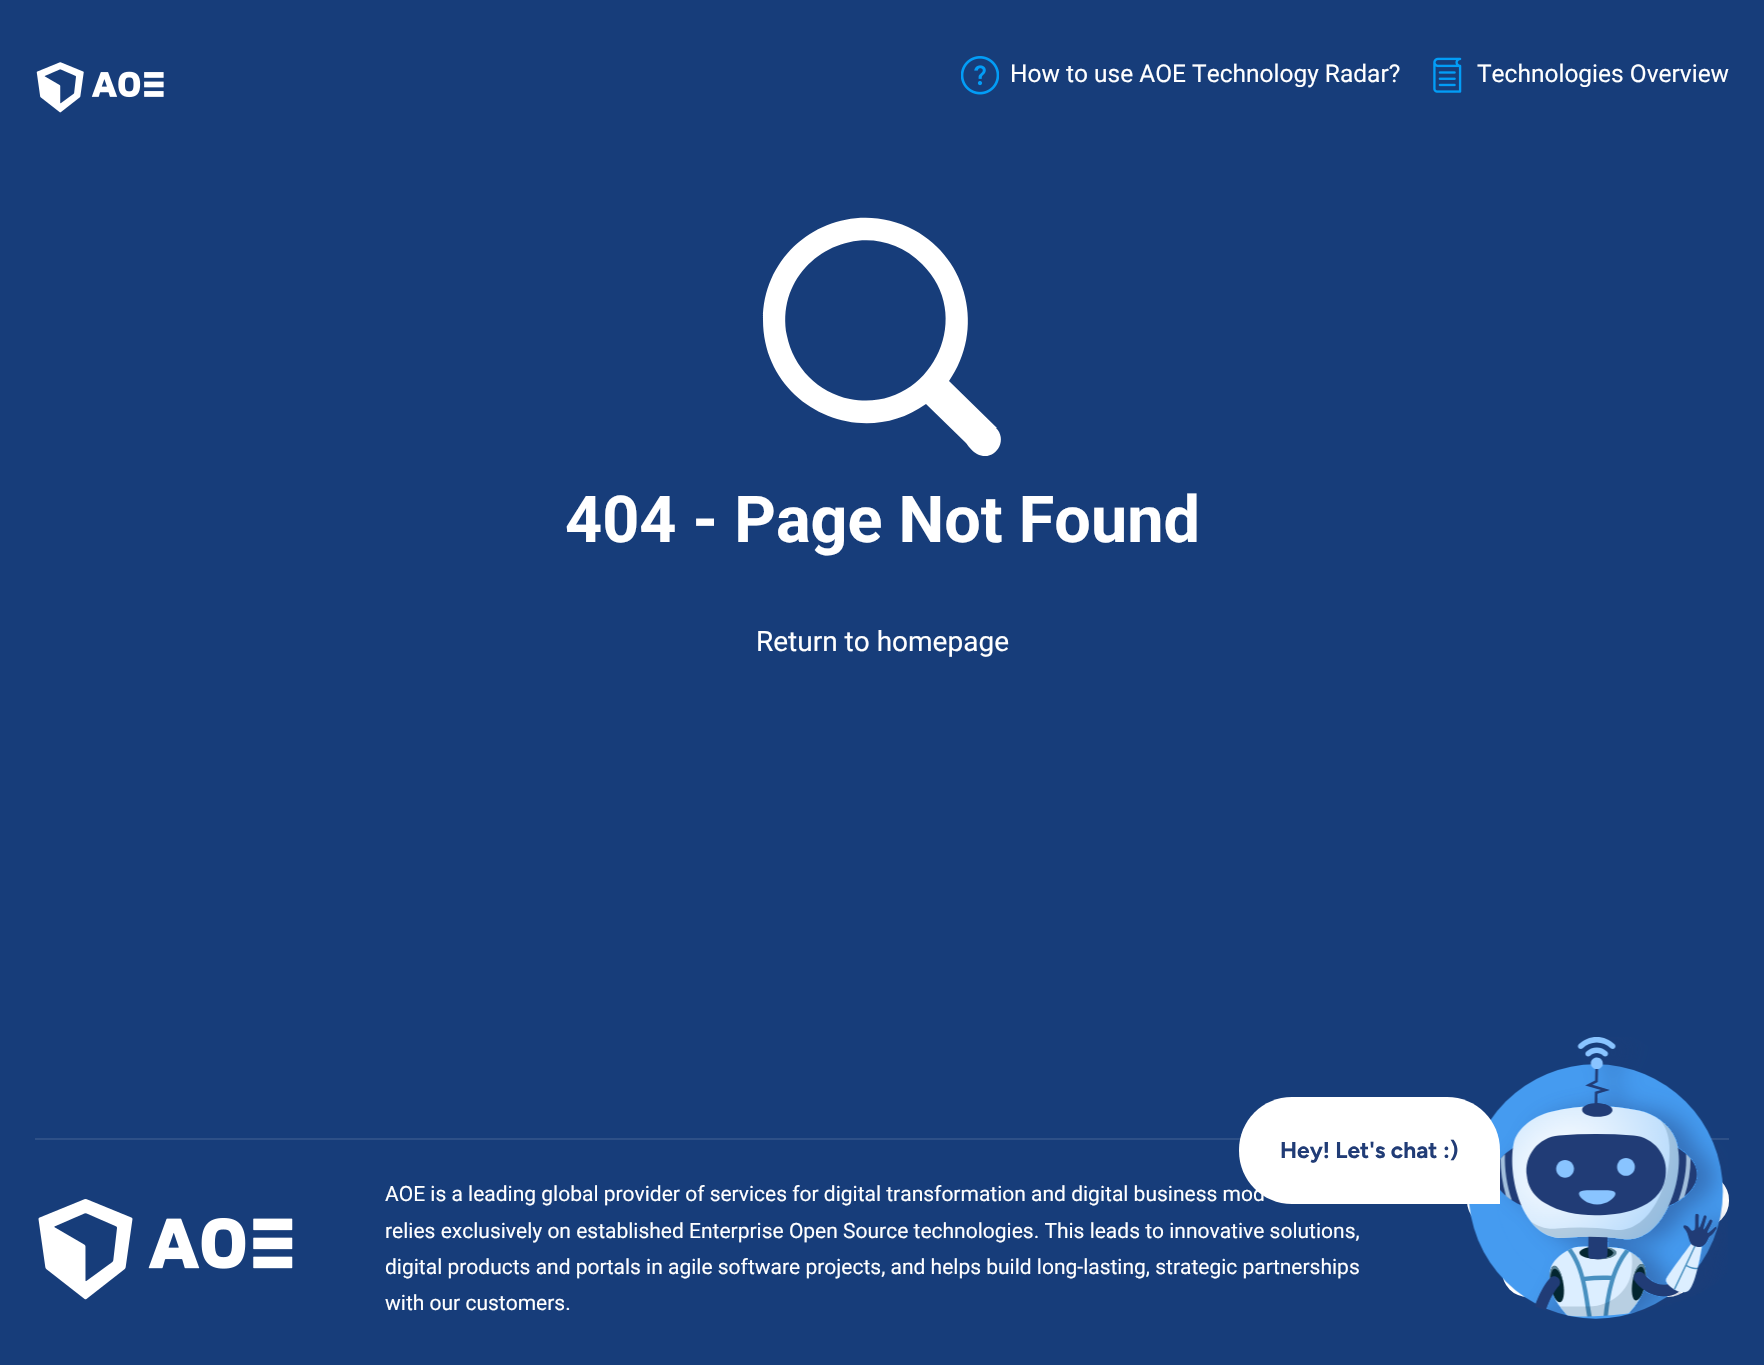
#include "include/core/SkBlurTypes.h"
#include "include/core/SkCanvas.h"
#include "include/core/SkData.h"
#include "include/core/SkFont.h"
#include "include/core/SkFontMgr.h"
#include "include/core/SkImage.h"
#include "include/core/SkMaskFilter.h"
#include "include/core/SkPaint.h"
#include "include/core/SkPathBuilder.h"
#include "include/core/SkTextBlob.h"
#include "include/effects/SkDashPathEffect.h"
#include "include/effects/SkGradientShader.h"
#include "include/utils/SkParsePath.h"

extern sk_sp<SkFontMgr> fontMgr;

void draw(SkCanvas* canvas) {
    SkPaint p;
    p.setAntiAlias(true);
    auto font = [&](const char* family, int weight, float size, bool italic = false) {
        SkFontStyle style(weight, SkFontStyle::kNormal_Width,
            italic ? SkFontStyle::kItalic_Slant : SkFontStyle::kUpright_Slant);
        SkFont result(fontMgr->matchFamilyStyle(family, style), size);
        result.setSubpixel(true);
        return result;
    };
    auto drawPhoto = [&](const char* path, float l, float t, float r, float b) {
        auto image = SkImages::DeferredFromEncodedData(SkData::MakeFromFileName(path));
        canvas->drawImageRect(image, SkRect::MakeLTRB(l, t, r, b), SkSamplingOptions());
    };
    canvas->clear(0xFF173D7A);
    drawPhoto("media/1.png", 36, 62, 164, 113);
    drawPhoto("media/2.png", 961, 56, 999, 95);
    auto font1 = font("Roboto", 400, 24.5f);
    p.setColor(0xFFFFFFFF);
    canvas->drawString("How to use AOE Technology Radar?", 1010, 82, font1, p);
    drawPhoto("media/3.png", 1433, 57, 1462, 93);
    canvas->drawString("Technologies Overview", 1477, 82, font1, p);
    canvas->drawPath(SkPathBuilder(SkPathFillType::kEvenOdd).moveTo(997, 428).lineTo(949, 381).cubicTo(985, 330, 968, 259, 914, 230).cubicTo(846, 194, 763, 242, 763, 320).cubicTo(763, 405, 859, 452, 926, 404).lineTo(966, 443).cubicTo(969, 447, 973, 452, 977, 454).cubicTo(994, 463, 1009, 441, 996, 428).close().moveTo(809, 377).cubicTo(798, 366, 790, 351, 787, 336).cubicTo(772, 259, 866, 208, 922, 264).cubicTo(978, 319, 927, 414, 850, 399).cubicTo(834, 396, 820, 388, 809, 377).detach(), p);
    auto font2 = font("Roboto", 700, 64.75f);
    canvas->drawString("404 - Page Not Found", 565, 542, font2, p);
    auto font3 = font("Roboto", 400, 28);
    canvas->drawString("Return to homepage", 756, 651, font3, p);
    p.setColor(0xFF2E5087);
    canvas->drawRect(SkRect::MakeLTRB(35, 1138, 1729, 1140), p);
    drawPhoto("media/4.png", 38, 1199, 293, 1300);
    auto font4 = font("Roboto", 400, 21);
    p.setColor(0xFFFFFFFF);
    {
        const struct { const char* s; float x, y; } items[] = {
            {"AOE is a leading global provider of services for digital transformation and digital business mod", 385, 1201},
            {"relies exclusively on established Enterprise Open Source technologies. This leads to innovative solutions,", 385, 1238},
            {"digital products and portals in agile software projects, and helps build long-lasting, strategic partnerships", 385, 1274},
            {"with our customers.", 385, 1310},
        };
        for (auto [s, x, y] : items) {
            canvas->drawString(s, x, y, font4, p);
        }
    }
    canvas->drawRoundRect(SkRect::MakeLTRB(1467, 1174, 1519, 1227), 26, 26, p);
    p.setStyle(SkPaint::kStroke_Style);
    p.setStrokeWidth(2);
    p.setColor(0x1AFFFFFF);
    canvas->drawRoundRect(SkRect::MakeLTRB(1468, 1175, 1518, 1226), 25, 25, p);
    p.setStyle(SkPaint::kFill_Style);
    p.setColor(0xFFFFFFFF);
    canvas->drawRoundRect(SkRect::MakeLTRB(1677, 1174, 1729, 1227), 26, 26, p);
    p.setStyle(SkPaint::kStroke_Style);
    p.setColor(0x1AFFFFFF);
    canvas->drawRoundRect(SkRect::MakeLTRB(1678, 1175, 1728, 1226), 25, 25, p);
    p.setStyle(SkPaint::kFill_Style);
    p.setColor(0xFFFFFFFF);
    canvas->drawRoundRect(SkRect::MakeLTRB(1502, 1244, 1554, 1297), 26, 26, p);
    p.setStyle(SkPaint::kStroke_Style);
    p.setColor(0x1AFFFFFF);
    canvas->drawRoundRect(SkRect::MakeLTRB(1503, 1245, 1553, 1296), 25, 25, p);
    p.setStyle(SkPaint::kFill_Style);
    p.setColor(0xFFFFFFFF);
    canvas->drawRoundRect(SkRect::MakeLTRB(1642, 1244, 1694, 1297), 26, 26, p);
    p.setStyle(SkPaint::kStroke_Style);
    p.setColor(0x1AFFFFFF);
    canvas->drawRoundRect(SkRect::MakeLTRB(1643, 1245, 1693, 1296), 25, 25, p);
    drawPhoto("media/5.png", 1468, 1037, 1728, 1319);
    p.setStyle(SkPaint::kFill_Style);
    p.setColor(0xFFFFFFFF);
    canvas->drawPath(SkPathBuilder().moveTo(1292, 1097).lineTo(1447, 1097).cubicTo(1476.5f, 1097, 1500, 1120.5f, 1500, 1150).lineTo(1500, 1204).lineTo(1292, 1204).cubicTo(1262.5f, 1204, 1239, 1180.5f, 1239, 1151).lineTo(1239, 1150).cubicTo(1239, 1120.5f, 1262.5f, 1097, 1292, 1097).close().detach(), p);
    auto font5 = font("Figtree", 700, 22.75f);
    p.setColor(0xFF213C76);
    canvas->drawString("Hey! Let's chat :)", 1280, 1158, font5, p);
}
